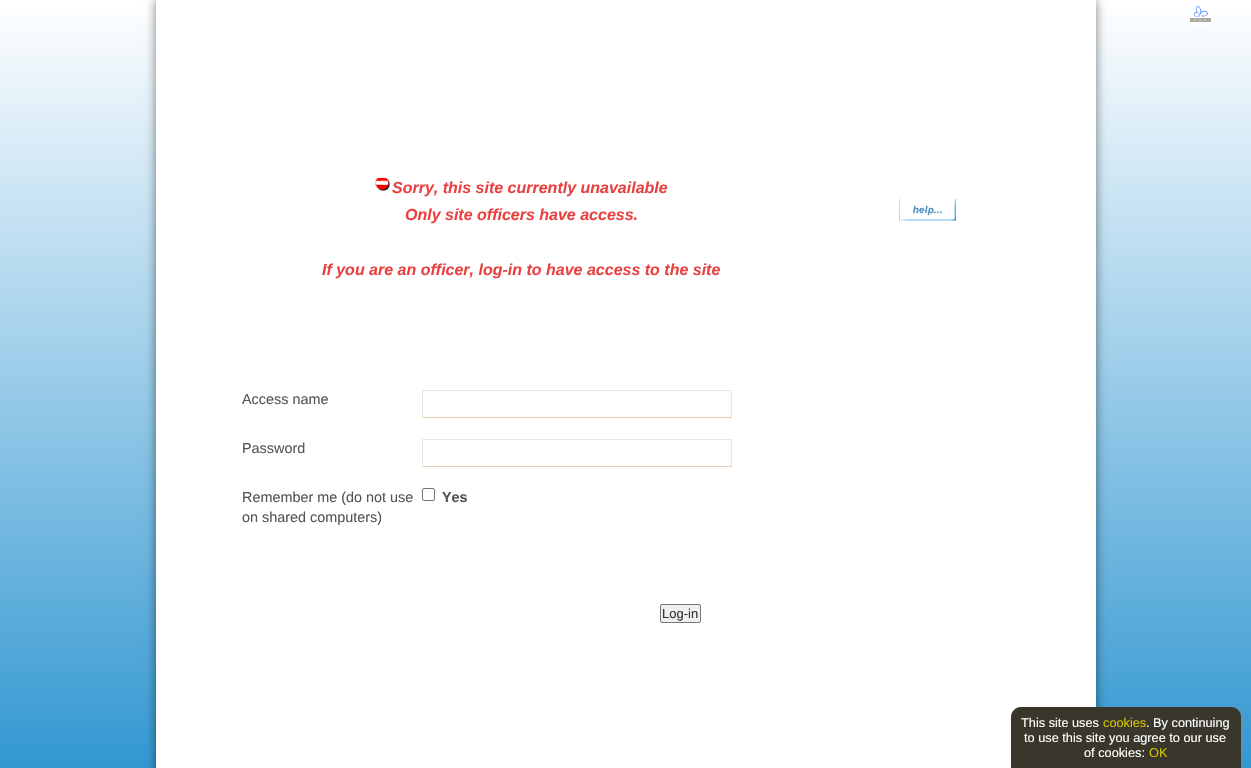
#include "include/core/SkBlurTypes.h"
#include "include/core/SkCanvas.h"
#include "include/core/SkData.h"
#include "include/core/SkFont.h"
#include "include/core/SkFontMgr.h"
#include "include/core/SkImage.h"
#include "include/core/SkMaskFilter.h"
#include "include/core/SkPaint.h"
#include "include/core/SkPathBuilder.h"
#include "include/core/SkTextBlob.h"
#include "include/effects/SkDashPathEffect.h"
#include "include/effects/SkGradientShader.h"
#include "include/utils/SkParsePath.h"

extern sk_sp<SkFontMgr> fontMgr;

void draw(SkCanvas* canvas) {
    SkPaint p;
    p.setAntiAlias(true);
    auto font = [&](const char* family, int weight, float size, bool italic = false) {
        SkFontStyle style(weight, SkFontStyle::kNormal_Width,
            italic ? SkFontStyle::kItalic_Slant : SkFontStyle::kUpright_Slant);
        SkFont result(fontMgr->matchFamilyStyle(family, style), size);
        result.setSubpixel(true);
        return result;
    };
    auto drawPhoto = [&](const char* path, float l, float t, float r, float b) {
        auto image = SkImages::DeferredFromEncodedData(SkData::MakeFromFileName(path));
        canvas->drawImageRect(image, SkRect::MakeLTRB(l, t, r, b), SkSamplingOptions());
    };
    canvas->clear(0xFFFFFFFF);
    {
        const SkColor colors[] = {0xFFFFFFFF, 0xFF0F86CA};
        const float stops[] = {0, 1};
        const SkPoint ends[] = {{626, 0}, {626, 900}};
        p.setShader(SkGradientShader::MakeLinear(ends, colors, stops, 2, SkTileMode::kClamp));
        p.setAlpha(255);
    }
    canvas->drawRect(SkRect::MakeLTRB(0, 9, 1251, 768), p);
    drawPhoto("media/1.png", 1189, 6, 1212, 25);
    p.setShader(nullptr);
    p.setColor(0x80000000);
    p.setMaskFilter(SkMaskFilter::MakeBlur(kNormal_SkBlurStyle, 5));
    canvas->drawRect(SkRect::MakeLTRB(156, 0, 1096, 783), p);
    p.setMaskFilter(nullptr);
    p.setColor(0xFFFFFFFF);
    canvas->drawRect(SkRect::MakeLTRB(156, 0, 1096, 768), p);
    drawPhoto("media/2.png", 375, 178, 390, 191);
    auto font1 = font("Liberation Sans", 700, 16, true);
    p.setColor(0xFFE94141);
    {
        const struct { const char* s; float x, y; } items[] = {
            {"Sorry, this site currently unavailable", 392, 193},
            {"Only site officers have access.", 405, 220},
            {"If you are an officer, log-in to have access to the site", 322, 275},
        };
        for (auto [s, x, y] : items) {
            canvas->drawString(s, x, y, font1, p);
        }
    }
    auto font2 = font("Liberation Sans", 400, 14.4f);
    p.setColor(0xFF555555);
    canvas->drawString("Access name", 242, 404, font2, p);
    {
        const struct { float l, t, r, b; SkColor color; } items[] = {
            {422, 390, 732, 391, 0xFFEEE5DC},
            {731, 390, 732, 418, 0xFFEEE5DC},
            {422, 417, 732, 418, 0xFFE6CEB4},
            {422, 390, 423, 418, 0xFFEEE5DC},
        };
        for (auto [l, t, r, b, color] : items) {
            p.setColor(color);
            canvas->drawRect(SkRect::MakeLTRB(l, t, r, b), p);
        }
    }
    p.setColor(0xFF555555);
    canvas->drawString("Password", 242, 453, font2, p);
    {
        const struct { float l, t, r, b; SkColor color; } items[] = {
            {422, 439, 732, 440, 0xFFEEE5DC},
            {731, 439, 732, 467, 0xFFEEE5DC},
            {422, 466, 732, 467, 0xFFE6CEB4},
            {422, 439, 423, 467, 0xFFEEE5DC},
        };
        for (auto [l, t, r, b, color] : items) {
            p.setColor(color);
            canvas->drawRect(SkRect::MakeLTRB(l, t, r, b), p);
        }
    }
    p.setColor(0xFF555555);
    canvas->drawString("Remember me (do not use", 242, 502, font2, p);
    canvas->drawString("on shared computers)", 242, 522, font2, p);
    p.setStyle(SkPaint::kStroke_Style);
    p.setStrokeWidth(1);
    p.setColor(0xFF767676);
    canvas->drawRoundRect(SkRect::MakeLTRB(422.5f, 488.5f, 434.5f, 500.5f), 1.5f, 1.5f, p);
    auto font3 = font("Liberation Sans", 700, 14.4f);
    p.setStyle(SkPaint::kFill_Style);
    p.setColor(0xFF555555);
    canvas->drawString("Yes", 442, 502, font3, p);
    p.setColor(0xFFEFEFEF);
    canvas->drawRoundRect(SkRect::MakeLTRB(660.5f, 604.5f, 700.5f, 622.5f), 1.5f, 1.5f, p);
    p.setStyle(SkPaint::kStroke_Style);
    p.setColor(0xFF767676);
    canvas->drawRoundRect(SkRect::MakeLTRB(660.5f, 604.5f, 700.5f, 622.5f), 1.5f, 1.5f, p);
    auto font4 = font("Liberation Sans", 400, 13);
    p.setStyle(SkPaint::kFill_Style);
    p.setColor(0xFF333333);
    canvas->drawString("Log-in", 662, 618, font4, p);
    drawPhoto("media/3.png", 899, 199, 956, 221);
    p.setColor(0xFF888888);
    p.setMaskFilter(SkMaskFilter::MakeBlur(kNormal_SkBlurStyle, 1));
    canvas->drawRoundRect(SkRect::MakeLTRB(1012, 708, 1242, 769), 10, 10, p);
    p.setMaskFilter(nullptr);
    p.setColor(0xFF39372C);
    canvas->drawPath(SkPathBuilder().moveTo(1021, 707).lineTo(1231, 707).cubicTo(1236.5f, 707, 1241, 711.5f, 1241, 717).lineTo(1241, 768).lineTo(1011, 768).lineTo(1011, 717).cubicTo(1011, 711.5f, 1015.5f, 707, 1021, 707).close().detach(), p);
    auto font5 = font("Liberation Sans", 400, 12.75f);
    p.setColor(0xFFFFFFFF);
    canvas->drawString("This site uses", 1021, 727, font5, p);
    p.setColor(0xFFD2C108);
    canvas->drawString("cookies", 1103, 727, font5, p);
    p.setColor(0xFFFFFFFF);
    {
        const struct { const char* s; float x, y; } items[] = {
            {". By continuing", 1146, 727},
            {"to use this site you agree to our use", 1024, 742},
            {"of cookies:", 1084, 757},
        };
        for (auto [s, x, y] : items) {
            canvas->drawString(s, x, y, font5, p);
        }
    }
    p.setColor(0xFFD2C108);
    canvas->drawString("OK", 1149, 757, font5, p);
}
